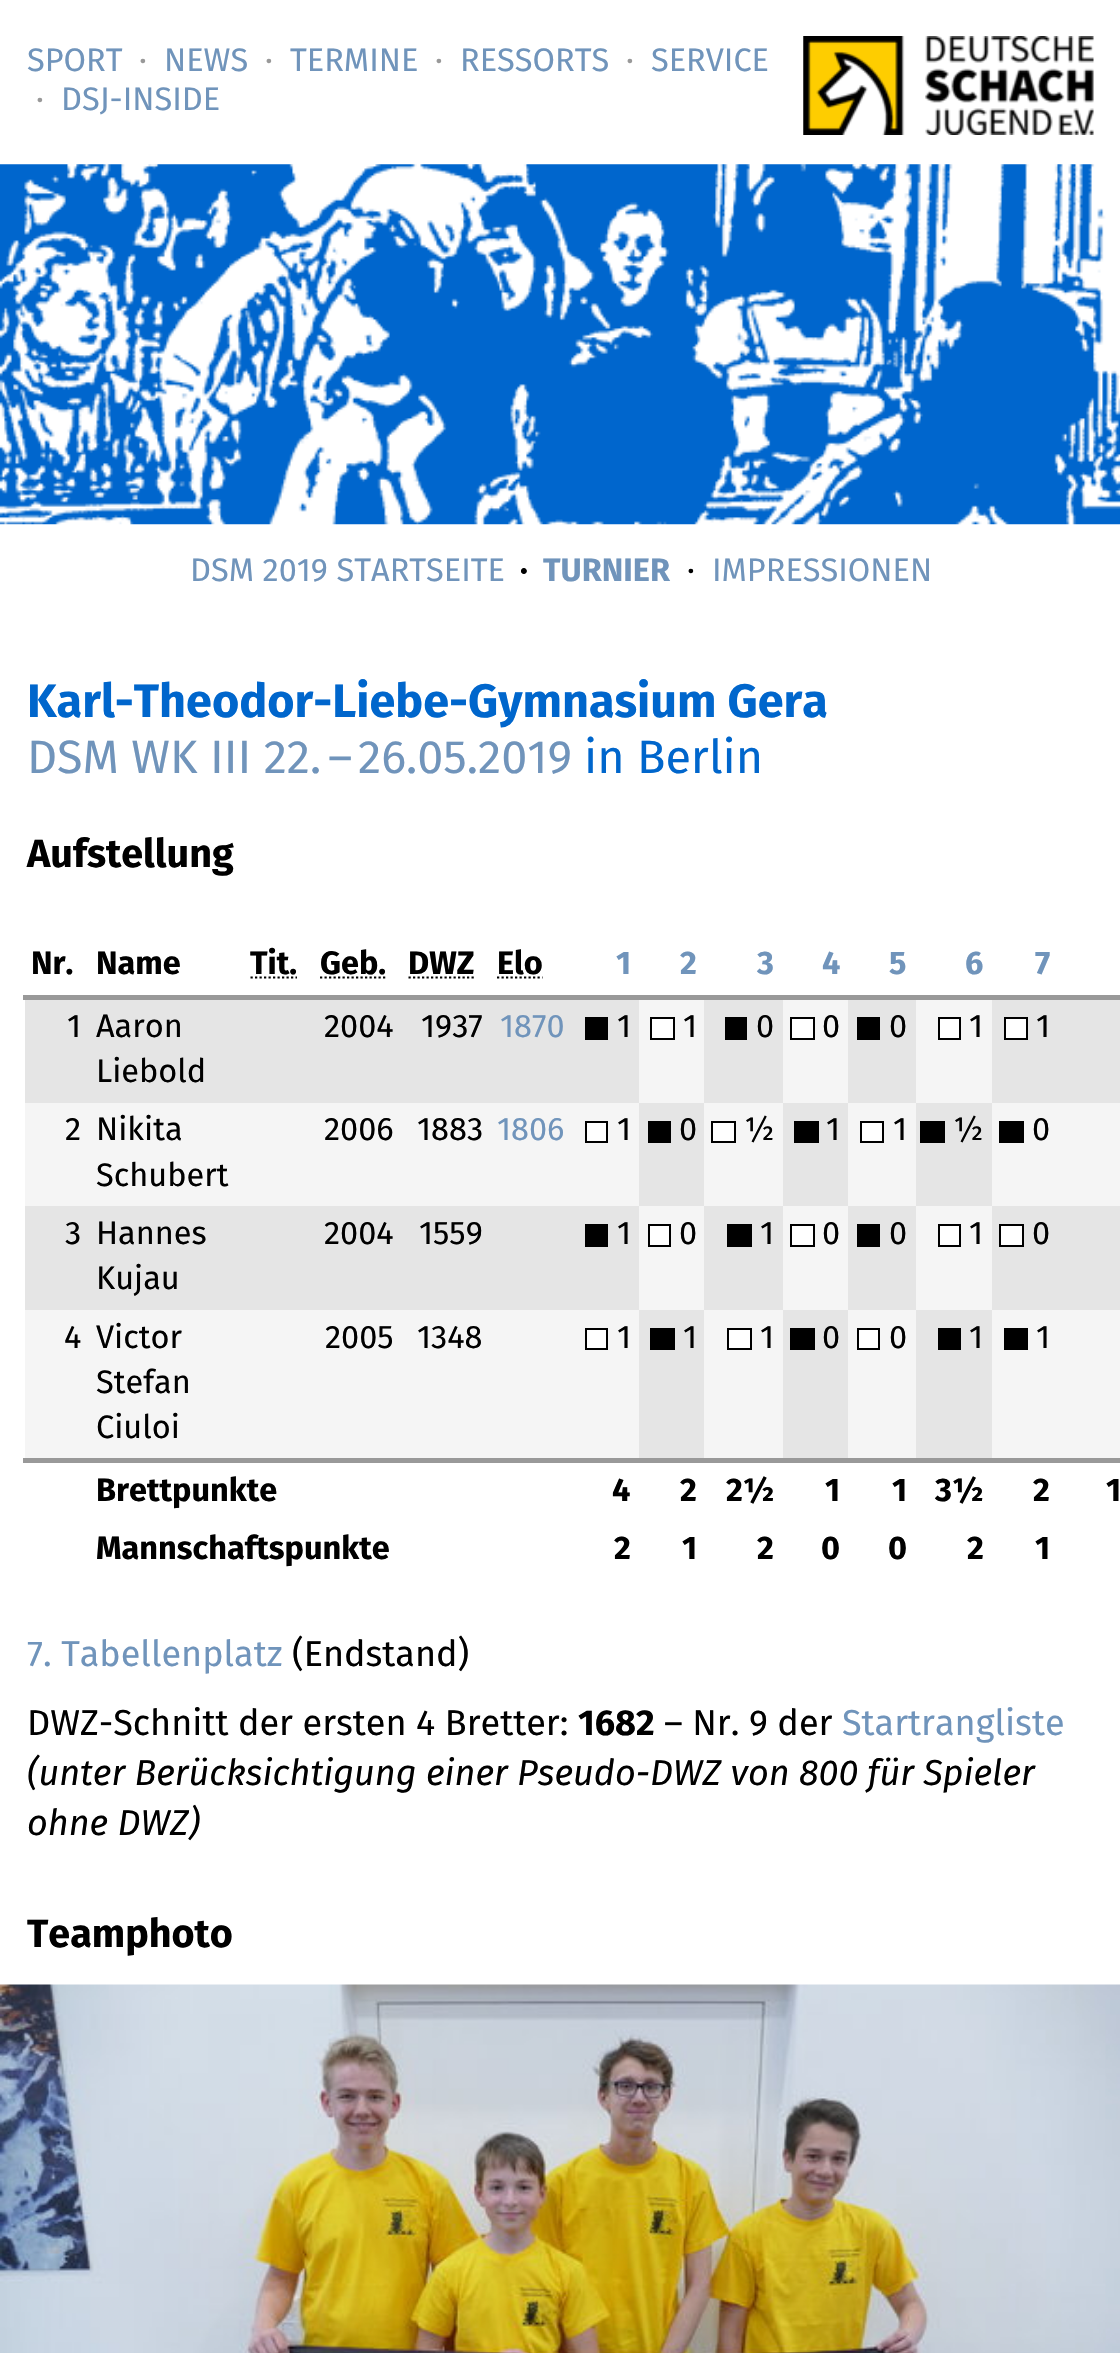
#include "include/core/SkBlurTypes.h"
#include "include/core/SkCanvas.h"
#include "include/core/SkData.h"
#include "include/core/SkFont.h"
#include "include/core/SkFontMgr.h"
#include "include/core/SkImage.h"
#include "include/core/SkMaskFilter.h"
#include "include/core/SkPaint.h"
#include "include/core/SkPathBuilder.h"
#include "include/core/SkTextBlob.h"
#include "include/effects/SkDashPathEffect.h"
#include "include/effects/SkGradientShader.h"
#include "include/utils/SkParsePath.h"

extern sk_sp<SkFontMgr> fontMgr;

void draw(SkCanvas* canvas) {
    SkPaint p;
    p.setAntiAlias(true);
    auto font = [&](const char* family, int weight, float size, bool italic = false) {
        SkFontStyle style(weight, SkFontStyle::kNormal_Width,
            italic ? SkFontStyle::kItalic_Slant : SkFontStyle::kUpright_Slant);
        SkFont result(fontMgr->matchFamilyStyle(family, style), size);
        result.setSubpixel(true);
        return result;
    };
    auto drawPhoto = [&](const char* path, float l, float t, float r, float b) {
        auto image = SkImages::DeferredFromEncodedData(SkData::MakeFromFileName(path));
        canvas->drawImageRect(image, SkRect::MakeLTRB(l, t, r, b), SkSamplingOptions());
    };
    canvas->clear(0xFFFFFFFF);
    auto font1 = font("Fira Sans", 400, 32.5f);
    p.setColor(0xFF7094BB);
    canvas->drawString("SPORT", 27, 71, font1, p);
    p.setColor(0xFF999999);
    canvas->drawString("·", 139, 71, font1, p);
    p.setColor(0xFF7094BB);
    canvas->drawString("NEWS", 164, 71, font1, p);
    p.setColor(0xFF999999);
    canvas->drawString("·", 265, 71, font1, p);
    p.setColor(0xFF7094BB);
    canvas->drawString("TERMINE", 290, 71, font1, p);
    p.setColor(0xFF999999);
    canvas->drawString("·", 435, 71, font1, p);
    p.setColor(0xFF7094BB);
    canvas->drawString("RESSORTS", 460, 71, font1, p);
    p.setColor(0xFF999999);
    canvas->drawString("·", 626, 71, font1, p);
    p.setColor(0xFF7094BB);
    canvas->drawString("SERVICE", 651, 71, font1, p);
    p.setColor(0xFF999999);
    canvas->drawString("·", 36, 110, font1, p);
    p.setColor(0xFF7094BB);
    canvas->drawString("DSJ-INSIDE", 61, 110, font1, p);
    drawPhoto("media/1.png", 803, 36, 1094, 135);
    drawPhoto("media/2.png", 0, 164, 1120, 525);
    canvas->drawString("DSM 2019 STARTSEITE", 190, 581, font1, p);
    auto font2 = font("Fira Sans", 700, 32.5f);
    p.setColor(0xFF000000);
    canvas->drawString("·", 520, 581, font2, p);
    p.setColor(0xFF7094BB);
    canvas->drawString("TURNIER", 543, 581, font2, p);
    p.setColor(0xFF000000);
    canvas->drawString("·", 687, 581, font1, p);
    p.setColor(0xFF7094BB);
    canvas->drawString("IMPRESSIONEN", 712, 581, font1, p);
    auto font3 = font("Fira Sans", 700, 46.75f);
    p.setColor(0xFF0066CC);
    canvas->drawString("Karl-Theodor-Liebe-Gymnasium Gera", 27, 717, font3, p);
    auto font4 = font("Fira Sans", 400, 46.75f);
    p.setColor(0xFF7094BB);
    {
        const struct { const char* s; float x, y; } items[] = {
            {"DSM WK III 22.", 27, 773},
            {"–", 328, 773},
            {"26.05.2019", 358, 773},
        };
        for (auto [s, x, y] : items) {
            canvas->drawString(s, x, y, font4, p);
        }
    }
    p.setColor(0xFF0066CC);
    canvas->drawString("in Berlin", 584, 773, font4, p);
    auto font5 = font("Fira Sans", 700, 39.5f);
    p.setColor(0xFF000000);
    canvas->drawString("Aufstellung", 27, 867, font5, p);
    {
        const struct { const char* s; float x, y; } items[] = {
            {"Nr.", 31, 974},
            {"Name", 96, 974},
            {"Tit.", 250, 974},
        };
        for (auto [s, x, y] : items) {
            canvas->drawString(s, x, y, font2, p);
        }
    }
    p.setStyle(SkPaint::kStroke_Style);
    p.setStrokeWidth(2.2f);
    p.setPathEffect(SkDashPathEffect::Make({{2.25f, 2.25f}}, 0));
    canvas->drawPath(SkPathBuilder().moveTo(250.5f, 977.5f).lineTo(297, 977.5f).detach(), p);
    p.setPathEffect(nullptr);
    p.setStyle(SkPaint::kFill_Style);
    canvas->drawString("Geb.", 320, 974, font2, p);
    p.setStyle(SkPaint::kStroke_Style);
    p.setPathEffect(SkDashPathEffect::Make({{2.25f, 2.25f}}, 0));
    canvas->drawPath(SkPathBuilder().moveTo(320, 977.5f).lineTo(385.5f, 977.5f).detach(), p);
    p.setPathEffect(nullptr);
    p.setStyle(SkPaint::kFill_Style);
    canvas->drawString("DWZ", 408, 974, font2, p);
    p.setStyle(SkPaint::kStroke_Style);
    p.setPathEffect(SkDashPathEffect::Make({{2.25f, 2.25f}}, 0));
    canvas->drawPath(SkPathBuilder().moveTo(408.5f, 977.5f).lineTo(474.5f, 977.5f).detach(), p);
    p.setPathEffect(nullptr);
    p.setStyle(SkPaint::kFill_Style);
    canvas->drawString("Elo", 497, 974, font2, p);
    p.setStyle(SkPaint::kStroke_Style);
    p.setPathEffect(SkDashPathEffect::Make({{2.25f, 2.25f}}, 0));
    canvas->drawPath(SkPathBuilder().moveTo(497, 977.5f).lineTo(542.5f, 977.5f).detach(), p);
    p.setPathEffect(nullptr);
    p.setStyle(SkPaint::kFill_Style);
    p.setColor(0xFF7094BB);
    {
        const struct { const char* s; float x, y; } items[] = {
            {"1", 616, 974},
            {"2", 680, 974},
            {"3", 757, 974},
            {"4", 822, 974},
            {"5", 889, 974},
            {"6", 965, 974},
            {"7", 1035, 974},
        };
        for (auto [s, x, y] : items) {
            canvas->drawString(s, x, y, font2, p);
        }
    }
    p.setColor(0xFF999999);
    canvas->drawRect(SkRect::MakeLTRB(23, 995, 1120, 1000), p);
    p.setColor(0xFFE5E5E5);
    canvas->drawRect(SkRect::MakeLTRB(25, 1000, 639, 1103), p);
    p.setColor(0xFF000000);
    {
        const struct { const char* s; float x, y; } items[] = {
            {"1", 67, 1037},
            {"Aaron", 96, 1037},
            {"Liebold", 96, 1082},
            {"2004", 324, 1037},
            {"1937", 421, 1037},
        };
        for (auto [s, x, y] : items) {
            canvas->drawString(s, x, y, font1, p);
        }
    }
    p.setColor(0xFF7094BB);
    canvas->drawString("1870", 500, 1037, font1, p);
    p.setColor(0xFF000000);
    canvas->drawRect(SkRect::MakeLTRB(585, 1017, 608, 1040), p);
    canvas->drawString("1", 617, 1037, font1, p);
    p.setColor(0xFFF5F5F5);
    canvas->drawRect(SkRect::MakeLTRB(639, 1000, 704, 1103), p);
    p.setColor(0xFFFFFFFF);
    canvas->drawRect(SkRect::MakeLTRB(651, 1018, 674, 1039), p);
    p.setStyle(SkPaint::kStroke_Style);
    p.setStrokeWidth(2);
    p.setColor(0xFF000000);
    canvas->drawRect(SkRect::MakeLTRB(651, 1018, 674, 1039), p);
    p.setStyle(SkPaint::kFill_Style);
    canvas->drawString("1", 683, 1037, font1, p);
    p.setColor(0xFFE5E5E5);
    canvas->drawRect(SkRect::MakeLTRB(704, 1000, 783, 1103), p);
    p.setColor(0xFF000000);
    canvas->drawRect(SkRect::MakeLTRB(725, 1017, 747, 1040), p);
    canvas->drawString("0", 756, 1037, font1, p);
    p.setColor(0xFFF5F5F5);
    canvas->drawRect(SkRect::MakeLTRB(783, 1000, 848, 1103), p);
    p.setColor(0xFFFFFFFF);
    canvas->drawRect(SkRect::MakeLTRB(791, 1018, 814, 1039), p);
    p.setStyle(SkPaint::kStroke_Style);
    p.setColor(0xFF000000);
    canvas->drawRect(SkRect::MakeLTRB(791, 1018, 814, 1039), p);
    p.setStyle(SkPaint::kFill_Style);
    canvas->drawString("0", 822, 1037, font1, p);
    p.setColor(0xFFE5E5E5);
    canvas->drawRect(SkRect::MakeLTRB(848, 1000, 916, 1103), p);
    p.setColor(0xFF000000);
    canvas->drawRect(SkRect::MakeLTRB(857, 1017, 880, 1040), p);
    canvas->drawString("0", 889, 1037, font1, p);
    p.setColor(0xFFF5F5F5);
    canvas->drawRect(SkRect::MakeLTRB(916, 1000, 992, 1103), p);
    p.setColor(0xFFFFFFFF);
    canvas->drawRect(SkRect::MakeLTRB(939, 1018, 960, 1039), p);
    p.setStyle(SkPaint::kStroke_Style);
    p.setColor(0xFF000000);
    canvas->drawRect(SkRect::MakeLTRB(939, 1018, 960, 1039), p);
    p.setStyle(SkPaint::kFill_Style);
    canvas->drawString("1", 969, 1037, font1, p);
    p.setColor(0xFFE5E5E5);
    canvas->drawRect(SkRect::MakeLTRB(992, 1000, 1120, 1103), p);
    p.setColor(0xFFFFFFFF);
    canvas->drawRect(SkRect::MakeLTRB(1005, 1018, 1027, 1039), p);
    p.setStyle(SkPaint::kStroke_Style);
    p.setColor(0xFF000000);
    canvas->drawRect(SkRect::MakeLTRB(1005, 1018, 1027, 1039), p);
    p.setStyle(SkPaint::kFill_Style);
    canvas->drawString("1", 1036, 1037, font1, p);
    p.setColor(0xFFF5F5F5);
    canvas->drawRect(SkRect::MakeLTRB(25, 1103, 639, 1206), p);
    p.setColor(0xFF000000);
    {
        const struct { const char* s; float x, y; } items[] = {
            {"2", 65, 1140},
            {"Nikita", 96, 1140},
            {"Schubert", 96, 1186},
            {"2006", 324, 1140},
            {"1883", 417, 1140},
        };
        for (auto [s, x, y] : items) {
            canvas->drawString(s, x, y, font1, p);
        }
    }
    p.setColor(0xFF7094BB);
    canvas->drawString("1806", 497, 1140, font1, p);
    p.setColor(0xFFFFFFFF);
    canvas->drawRect(SkRect::MakeLTRB(586, 1122, 607, 1142), p);
    p.setStyle(SkPaint::kStroke_Style);
    p.setColor(0xFF000000);
    canvas->drawRect(SkRect::MakeLTRB(586, 1122, 607, 1142), p);
    p.setStyle(SkPaint::kFill_Style);
    canvas->drawString("1", 617, 1140, font1, p);
    p.setColor(0xFFE5E5E5);
    canvas->drawRect(SkRect::MakeLTRB(639, 1103, 704, 1206), p);
    p.setColor(0xFF000000);
    canvas->drawRect(SkRect::MakeLTRB(648, 1121, 671, 1143), p);
    canvas->drawString("0", 679, 1140, font1, p);
    p.setColor(0xFFF5F5F5);
    canvas->drawRect(SkRect::MakeLTRB(704, 1103, 783, 1206), p);
    p.setColor(0xFFFFFFFF);
    canvas->drawRect(SkRect::MakeLTRB(712, 1122, 735, 1142), p);
    p.setStyle(SkPaint::kStroke_Style);
    p.setColor(0xFF000000);
    canvas->drawRect(SkRect::MakeLTRB(712, 1122, 735, 1142), p);
    p.setStyle(SkPaint::kFill_Style);
    canvas->drawString("½", 744, 1140, font1, p);
    p.setColor(0xFFE5E5E5);
    canvas->drawRect(SkRect::MakeLTRB(783, 1103, 848, 1206), p);
    p.setColor(0xFF000000);
    canvas->drawRect(SkRect::MakeLTRB(794, 1121, 819, 1143), p);
    canvas->drawString("1", 826, 1140, font1, p);
    p.setColor(0xFFF5F5F5);
    canvas->drawRect(SkRect::MakeLTRB(848, 1103, 916, 1206), p);
    p.setColor(0xFFFFFFFF);
    canvas->drawRect(SkRect::MakeLTRB(861, 1122, 883, 1142), p);
    p.setStyle(SkPaint::kStroke_Style);
    p.setColor(0xFF000000);
    canvas->drawRect(SkRect::MakeLTRB(861, 1122, 883, 1142), p);
    p.setStyle(SkPaint::kFill_Style);
    canvas->drawString("1", 893, 1140, font1, p);
    p.setColor(0xFFE5E5E5);
    canvas->drawRect(SkRect::MakeLTRB(916, 1103, 992, 1206), p);
    p.setColor(0xFF000000);
    canvas->drawRect(SkRect::MakeLTRB(920, 1121, 945, 1143), p);
    canvas->drawString("½", 953, 1140, font1, p);
    p.setColor(0xFFF5F5F5);
    canvas->drawRect(SkRect::MakeLTRB(992, 1103, 1120, 1206), p);
    p.setColor(0xFF000000);
    canvas->drawRect(SkRect::MakeLTRB(999, 1121, 1024, 1143), p);
    canvas->drawString("0", 1032, 1140, font1, p);
    p.setColor(0xFFE5E5E5);
    canvas->drawRect(SkRect::MakeLTRB(25, 1206, 639, 1310), p);
    p.setColor(0xFF000000);
    {
        const struct { const char* s; float x, y; } items[] = {
            {"3", 65, 1244},
            {"Hannes", 96, 1244},
            {"Kujau", 96, 1289},
            {"2004", 324, 1244},
            {"1559", 419, 1244},
        };
        for (auto [s, x, y] : items) {
            canvas->drawString(s, x, y, font1, p);
        }
    }
    canvas->drawRect(SkRect::MakeLTRB(585, 1224, 608, 1247), p);
    canvas->drawString("1", 617, 1244, font1, p);
    p.setColor(0xFFF5F5F5);
    canvas->drawRect(SkRect::MakeLTRB(639, 1206, 704, 1310), p);
    p.setColor(0xFFFFFFFF);
    canvas->drawRect(SkRect::MakeLTRB(649, 1225, 670, 1246), p);
    p.setStyle(SkPaint::kStroke_Style);
    p.setColor(0xFF000000);
    canvas->drawRect(SkRect::MakeLTRB(649, 1225, 670, 1246), p);
    p.setStyle(SkPaint::kFill_Style);
    canvas->drawString("0", 679, 1244, font1, p);
    p.setColor(0xFFE5E5E5);
    canvas->drawRect(SkRect::MakeLTRB(704, 1206, 783, 1310), p);
    p.setColor(0xFF000000);
    canvas->drawRect(SkRect::MakeLTRB(727, 1224, 752, 1247), p);
    canvas->drawString("1", 760, 1244, font1, p);
    p.setColor(0xFFF5F5F5);
    canvas->drawRect(SkRect::MakeLTRB(783, 1206, 848, 1310), p);
    p.setColor(0xFFFFFFFF);
    canvas->drawRect(SkRect::MakeLTRB(791, 1225, 814, 1246), p);
    p.setStyle(SkPaint::kStroke_Style);
    p.setColor(0xFF000000);
    canvas->drawRect(SkRect::MakeLTRB(791, 1225, 814, 1246), p);
    p.setStyle(SkPaint::kFill_Style);
    canvas->drawString("0", 822, 1244, font1, p);
    p.setColor(0xFFE5E5E5);
    canvas->drawRect(SkRect::MakeLTRB(848, 1206, 916, 1310), p);
    p.setColor(0xFF000000);
    canvas->drawRect(SkRect::MakeLTRB(857, 1224, 880, 1247), p);
    canvas->drawString("0", 889, 1244, font1, p);
    p.setColor(0xFFF5F5F5);
    canvas->drawRect(SkRect::MakeLTRB(916, 1206, 992, 1310), p);
    p.setColor(0xFFFFFFFF);
    canvas->drawRect(SkRect::MakeLTRB(939, 1225, 960, 1246), p);
    p.setStyle(SkPaint::kStroke_Style);
    p.setColor(0xFF000000);
    canvas->drawRect(SkRect::MakeLTRB(939, 1225, 960, 1246), p);
    p.setStyle(SkPaint::kFill_Style);
    canvas->drawString("1", 969, 1244, font1, p);
    p.setColor(0xFFE5E5E5);
    canvas->drawRect(SkRect::MakeLTRB(992, 1206, 1120, 1310), p);
    p.setColor(0xFFFFFFFF);
    canvas->drawRect(SkRect::MakeLTRB(1000, 1225, 1023, 1246), p);
    p.setStyle(SkPaint::kStroke_Style);
    p.setColor(0xFF000000);
    canvas->drawRect(SkRect::MakeLTRB(1000, 1225, 1023, 1246), p);
    p.setStyle(SkPaint::kFill_Style);
    canvas->drawString("0", 1032, 1244, font1, p);
    p.setColor(0xFFF5F5F5);
    canvas->drawRect(SkRect::MakeLTRB(25, 1310, 639, 1458), p);
    p.setColor(0xFF000000);
    {
        const struct { const char* s; float x, y; } items[] = {
            {"4", 64, 1348},
            {"Victor", 96, 1348},
            {"Stefan", 96, 1393},
            {"Ciuloi", 96, 1438},
            {"2005", 325, 1348},
            {"1348", 417, 1348},
        };
        for (auto [s, x, y] : items) {
            canvas->drawString(s, x, y, font1, p);
        }
    }
    p.setColor(0xFFFFFFFF);
    canvas->drawRect(SkRect::MakeLTRB(586, 1329, 607, 1349), p);
    p.setStyle(SkPaint::kStroke_Style);
    p.setColor(0xFF000000);
    canvas->drawRect(SkRect::MakeLTRB(586, 1329, 607, 1349), p);
    p.setStyle(SkPaint::kFill_Style);
    canvas->drawString("1", 617, 1348, font1, p);
    p.setColor(0xFFE5E5E5);
    canvas->drawRect(SkRect::MakeLTRB(639, 1310, 704, 1458), p);
    p.setColor(0xFF000000);
    canvas->drawRect(SkRect::MakeLTRB(650, 1328, 675, 1350), p);
    canvas->drawString("1", 683, 1348, font1, p);
    p.setColor(0xFFF5F5F5);
    canvas->drawRect(SkRect::MakeLTRB(704, 1310, 783, 1458), p);
    p.setColor(0xFFFFFFFF);
    canvas->drawRect(SkRect::MakeLTRB(728, 1329, 751, 1349), p);
    p.setStyle(SkPaint::kStroke_Style);
    p.setColor(0xFF000000);
    canvas->drawRect(SkRect::MakeLTRB(728, 1329, 751, 1349), p);
    p.setStyle(SkPaint::kFill_Style);
    canvas->drawString("1", 760, 1348, font1, p);
    p.setColor(0xFFE5E5E5);
    canvas->drawRect(SkRect::MakeLTRB(783, 1310, 848, 1458), p);
    p.setColor(0xFF000000);
    canvas->drawRect(SkRect::MakeLTRB(790, 1328, 815, 1350), p);
    canvas->drawString("0", 822, 1348, font1, p);
    p.setColor(0xFFF5F5F5);
    canvas->drawRect(SkRect::MakeLTRB(848, 1310, 916, 1458), p);
    p.setColor(0xFFFFFFFF);
    canvas->drawRect(SkRect::MakeLTRB(858, 1329, 879, 1349), p);
    p.setStyle(SkPaint::kStroke_Style);
    p.setColor(0xFF000000);
    canvas->drawRect(SkRect::MakeLTRB(858, 1329, 879, 1349), p);
    p.setStyle(SkPaint::kFill_Style);
    canvas->drawString("0", 889, 1348, font1, p);
    p.setColor(0xFFE5E5E5);
    canvas->drawRect(SkRect::MakeLTRB(916, 1310, 992, 1458), p);
    p.setColor(0xFF000000);
    canvas->drawRect(SkRect::MakeLTRB(938, 1328, 961, 1350), p);
    canvas->drawString("1", 969, 1348, font1, p);
    p.setColor(0xFFF5F5F5);
    canvas->drawRect(SkRect::MakeLTRB(992, 1310, 1120, 1458), p);
    p.setColor(0xFF000000);
    canvas->drawRect(SkRect::MakeLTRB(1004, 1328, 1028, 1350), p);
    canvas->drawString("1", 1036, 1348, font1, p);
    p.setColor(0xFF999999);
    canvas->drawRect(SkRect::MakeLTRB(23, 1458, 1120, 1463), p);
    p.setColor(0xFF000000);
    {
        const struct { const char* s; float x, y; } items[] = {
            {"Brettpunkte", 96, 1501},
            {"4", 612, 1501},
            {"2", 680, 1501},
            {"2½", 726, 1501},
            {"1", 825, 1501},
            {"1", 892, 1501},
            {"3½", 935, 1501},
            {"2", 1033, 1501},
            {"1", 1106, 1501},
            {"Mannschaftspunkte", 96, 1559},
            {"2", 614, 1559},
            {"1", 682, 1559},
            {"2", 757, 1559},
            {"0", 821, 1559},
            {"0", 888, 1559},
            {"2", 967, 1559},
            {"1", 1035, 1559},
        };
        for (auto [s, x, y] : items) {
            canvas->drawString(s, x, y, font2, p);
        }
    }
    auto font6 = font("Fira Sans", 400, 36);
    p.setColor(0xFF7094BB);
    canvas->drawString("7. Tabellenplatz", 27, 1666, font6, p);
    p.setColor(0xFF000000);
    canvas->drawString("(Endstand)", 292, 1666, font6, p);
    canvas->drawString("DWZ-Schnitt der ersten 4 Bretter:", 27, 1735, font6, p);
    auto font7 = font("Fira Sans", 700, 36);
    canvas->drawString("1682", 578, 1735, font7, p);
    canvas->drawString("– Nr. 9 der", 664, 1735, font6, p);
    p.setColor(0xFF7094BB);
    canvas->drawString("Startrangliste", 842, 1735, font6, p);
    auto font8 = font("Fira Sans", 400, 36, true);
    p.setColor(0xFF000000);
    canvas->drawString("(unter Berücksichtigung einer Pseudo-DWZ von 800 für Spieler", 27, 1785, font8, p);
    canvas->drawString("ohne DWZ)", 27, 1835, font8, p);
    canvas->drawString("Teamphoto", 27, 1947, font5, p);
    drawPhoto("media/3.png", 0, 1984, 1120, 2353);
}
